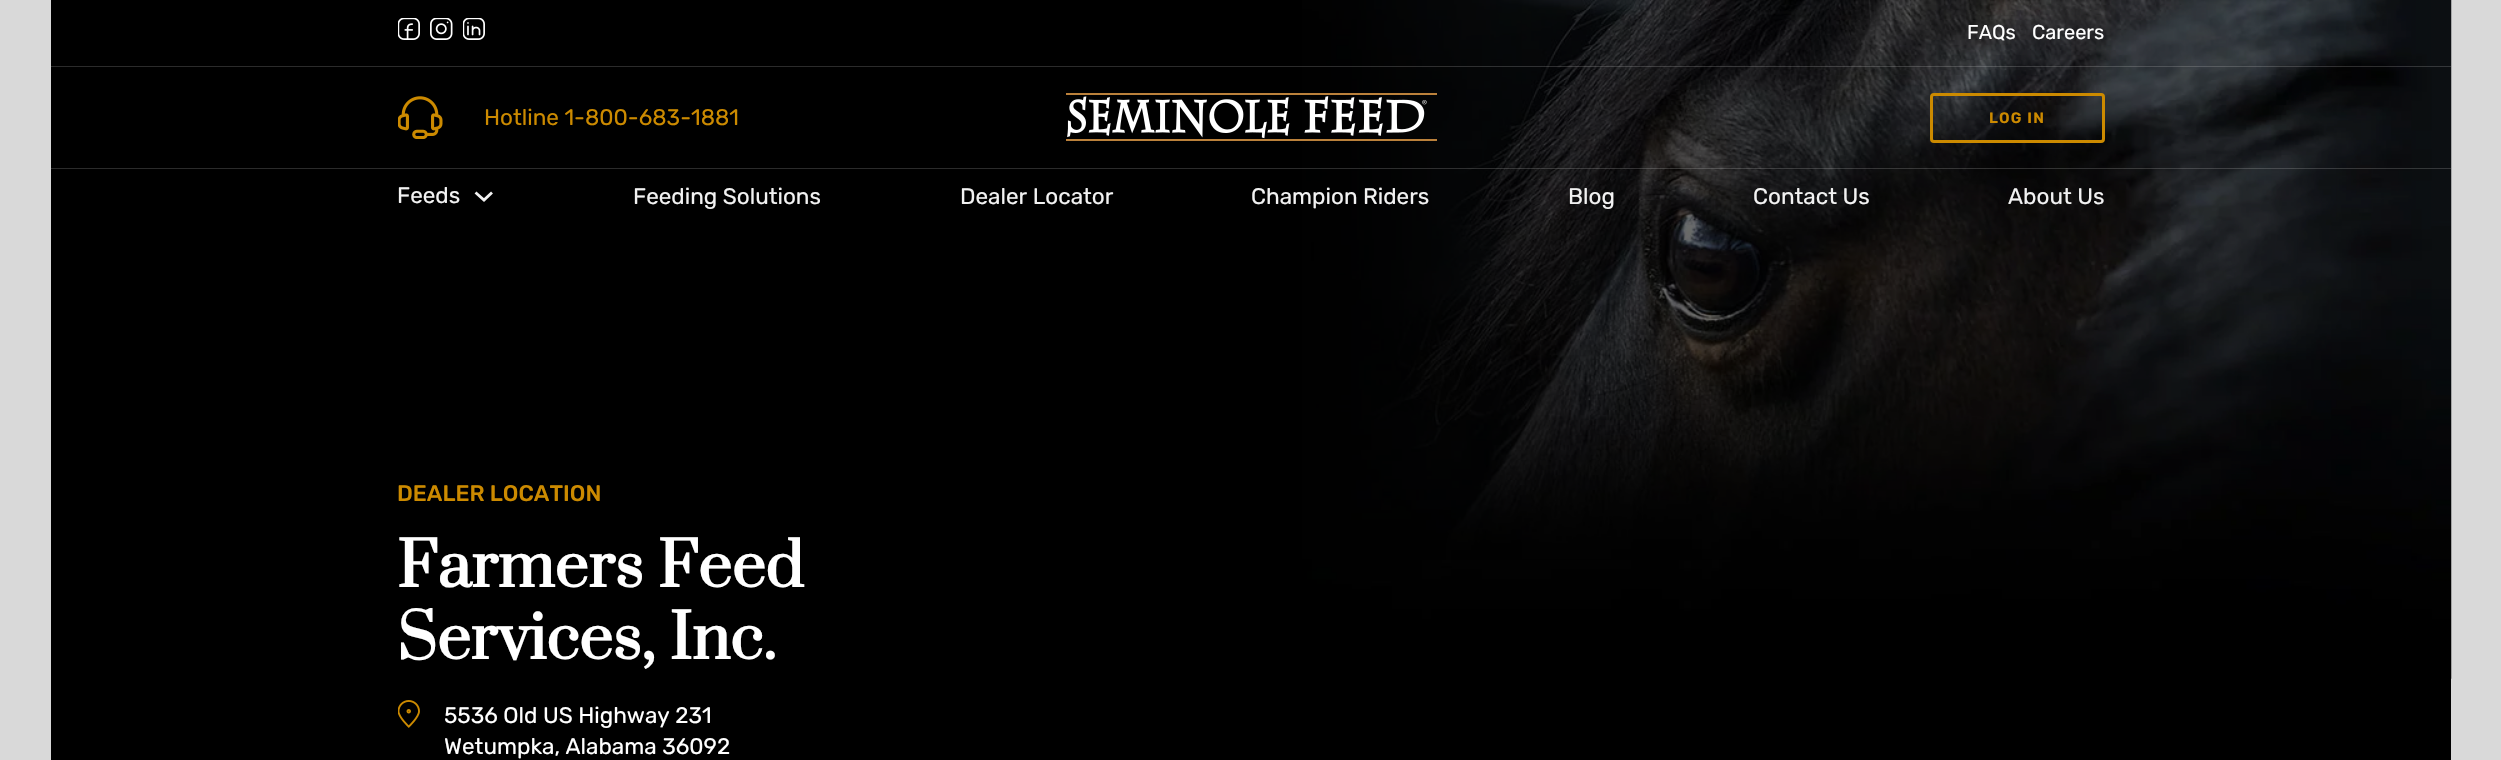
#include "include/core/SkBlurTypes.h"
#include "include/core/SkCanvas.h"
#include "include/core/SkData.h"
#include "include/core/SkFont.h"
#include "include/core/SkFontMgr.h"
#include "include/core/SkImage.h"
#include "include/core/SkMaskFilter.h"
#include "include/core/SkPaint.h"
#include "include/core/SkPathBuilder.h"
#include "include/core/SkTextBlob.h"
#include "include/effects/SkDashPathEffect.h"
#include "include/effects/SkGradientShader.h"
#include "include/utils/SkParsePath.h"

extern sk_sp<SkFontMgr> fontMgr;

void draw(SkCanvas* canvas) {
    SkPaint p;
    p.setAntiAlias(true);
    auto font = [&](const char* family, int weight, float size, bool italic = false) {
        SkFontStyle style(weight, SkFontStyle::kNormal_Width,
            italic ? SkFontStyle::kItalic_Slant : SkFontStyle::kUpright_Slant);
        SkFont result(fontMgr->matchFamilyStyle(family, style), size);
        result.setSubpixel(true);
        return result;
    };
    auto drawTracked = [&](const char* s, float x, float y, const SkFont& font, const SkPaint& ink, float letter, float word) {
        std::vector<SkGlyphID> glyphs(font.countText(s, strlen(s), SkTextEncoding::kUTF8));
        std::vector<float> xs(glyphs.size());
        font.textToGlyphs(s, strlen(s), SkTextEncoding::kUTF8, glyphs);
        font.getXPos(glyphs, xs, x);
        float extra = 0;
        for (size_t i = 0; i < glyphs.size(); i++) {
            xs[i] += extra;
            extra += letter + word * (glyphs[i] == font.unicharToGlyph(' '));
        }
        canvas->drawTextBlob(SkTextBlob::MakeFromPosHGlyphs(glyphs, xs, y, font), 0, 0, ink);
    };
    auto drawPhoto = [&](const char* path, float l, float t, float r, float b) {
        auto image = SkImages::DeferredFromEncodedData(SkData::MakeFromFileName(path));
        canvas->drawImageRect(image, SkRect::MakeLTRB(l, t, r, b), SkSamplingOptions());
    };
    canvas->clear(0xFFD9D9D9);
    p.setColor(0xFF000000);
    canvas->drawRect(SkRect::MakeLTRB(51, 0, 2451, 760), p);
    drawPhoto("media/6.png", 1302, 0, 2452, 679);
    {
        const SkColor colors[] = {0xCC000000, 0x33000000};
        const float stops[] = {0.5f, 1};
        const SkPoint ends[] = {{51, 490}, {2451, 490}};
        p.setShader(SkGradientShader::MakeLinear(ends, colors, stops, 2, SkTileMode::kClamp));
        p.setAlpha(255);
    }
    canvas->drawRect(SkRect::MakeLTRB(1302, 0, 2451, 560), p);
    p.setShader(nullptr);
    p.setColor(0x33D9D9D9);
    canvas->drawRect(SkRect::MakeLTRB(51, 66, 2451, 67), p);
    drawPhoto("media/1.png", 398, 18, 420, 40);
    drawPhoto("media/2.png", 430, 18, 453, 40);
    drawPhoto("media/3.png", 463, 18, 485, 40);
    auto font1 = font("Rubik", 400, 20);
    p.setColor(0xFFFFFFFF);
    canvas->drawString("FAQs", 1967, 39, font1, p);
    canvas->drawString("Careers", 2032, 39, font1, p);
    drawPhoto("media/4.png", 398, 96, 443, 139);
    auto font2 = font("Rubik", 400, 22.5f);
    p.setColor(0xFFCC8A00);
    canvas->drawString("Hotline 1-800-683-1881", 484, 125, font2, p);
    drawPhoto("media/5.png", 1066, 93, 1437, 141);
    p.setStyle(SkPaint::kStroke_Style);
    p.setStrokeWidth(3);
    canvas->drawRoundRect(SkRect::MakeLTRB(1931.5f, 94.5f, 2103.5f, 141.5f), 2.5f, 2.5f, p);
    auto font3 = font("Rubik", 600, 15);
    p.setStyle(SkPaint::kFill_Style);
    drawTracked("LOG IN", 1989, 123, font3, p, 1.25f, 0);
    p.setColor(0x33D9D9D9);
    canvas->drawRect(SkRect::MakeLTRB(51, 168, 2451, 169), p);
    p.setColor(0xFFF2F2F2);
    canvas->drawString("Feeds", 397, 203, font2, p);
    p.setStyle(SkPaint::kStroke_Style);
    p.setStrokeWidth(2.8f);
    canvas->drawPath(SkPathBuilder().moveTo(475.5f, 192.5f).lineTo(484, 200).lineTo(492, 192.5f).detach(), p);
    p.setStyle(SkPaint::kFill_Style);
    {
        const struct { const char* s; float x, y; } items[] = {
            {"Feeding Solutions", 633, 204},
            {"Dealer Locator", 960, 204},
            {"Champion Riders", 1251, 204},
            {"Blog", 1568, 204},
            {"Contact Us", 1753, 204},
            {"About Us", 2008, 204},
        };
        for (auto [s, x, y] : items) {
            canvas->drawString(s, x, y, font2, p);
        }
    }
    auto font4 = font("Rubik", 500, 22.5f);
    p.setColor(0xFFCC8A00);
    canvas->drawString("DEALER LOCATION", 397, 501, font4, p);
    auto font5 = font("Prata", 700, 60);
    p.setColor(0xFFFFFFFF);
    canvas->drawString("Farmers Feed", 397, 587, font5, p);
    canvas->drawString("Services, Inc.", 397, 659, font5, p);
    drawPhoto("media/7.png", 398, 700, 420, 728);
    canvas->drawString("5536 Old US Highway 231", 444, 723, font2, p);
    canvas->drawString("Wetumpka, Alabama 36092", 444, 754, font2, p);
}
